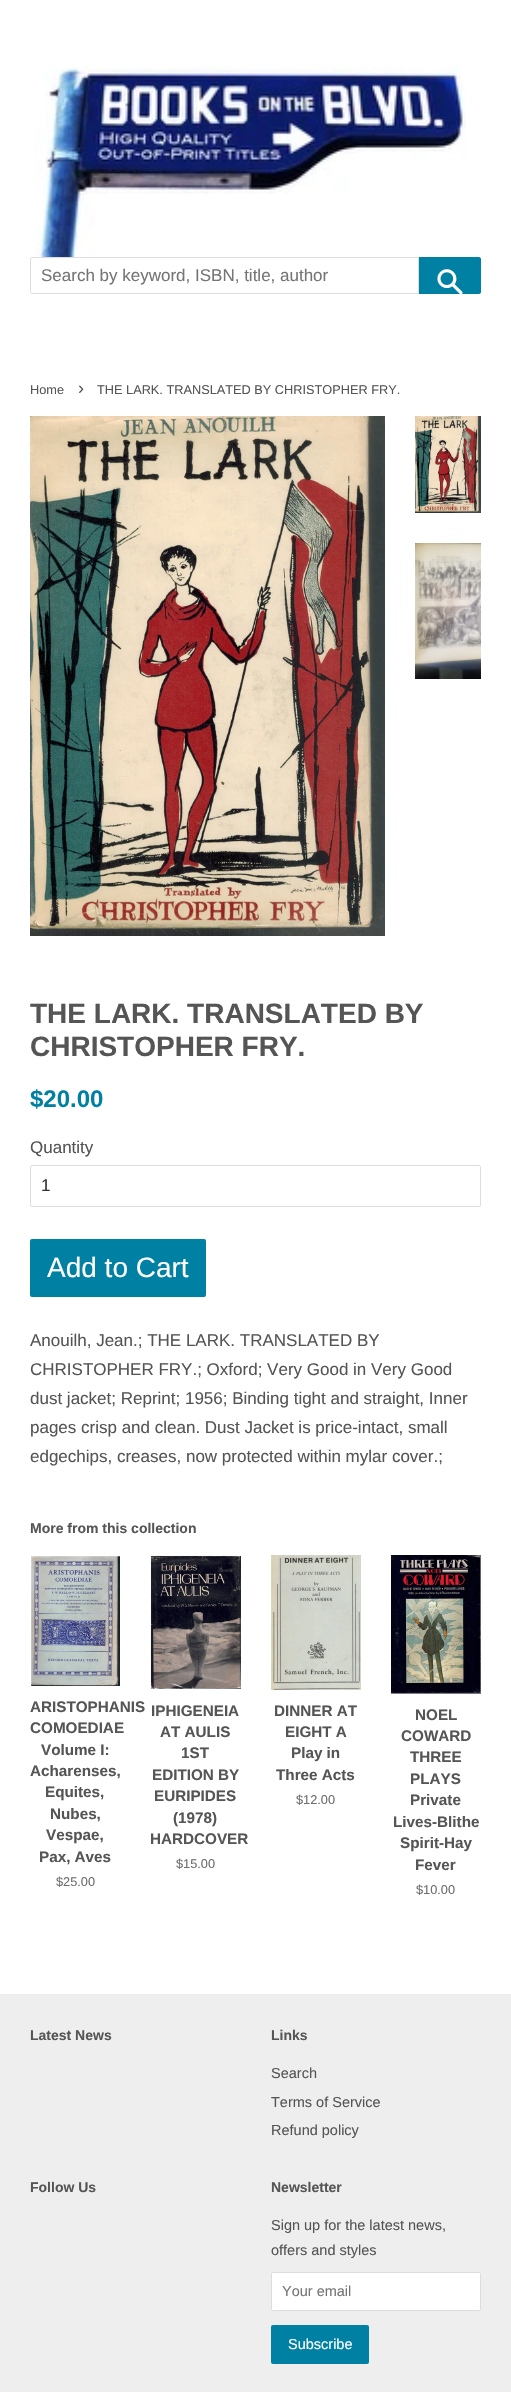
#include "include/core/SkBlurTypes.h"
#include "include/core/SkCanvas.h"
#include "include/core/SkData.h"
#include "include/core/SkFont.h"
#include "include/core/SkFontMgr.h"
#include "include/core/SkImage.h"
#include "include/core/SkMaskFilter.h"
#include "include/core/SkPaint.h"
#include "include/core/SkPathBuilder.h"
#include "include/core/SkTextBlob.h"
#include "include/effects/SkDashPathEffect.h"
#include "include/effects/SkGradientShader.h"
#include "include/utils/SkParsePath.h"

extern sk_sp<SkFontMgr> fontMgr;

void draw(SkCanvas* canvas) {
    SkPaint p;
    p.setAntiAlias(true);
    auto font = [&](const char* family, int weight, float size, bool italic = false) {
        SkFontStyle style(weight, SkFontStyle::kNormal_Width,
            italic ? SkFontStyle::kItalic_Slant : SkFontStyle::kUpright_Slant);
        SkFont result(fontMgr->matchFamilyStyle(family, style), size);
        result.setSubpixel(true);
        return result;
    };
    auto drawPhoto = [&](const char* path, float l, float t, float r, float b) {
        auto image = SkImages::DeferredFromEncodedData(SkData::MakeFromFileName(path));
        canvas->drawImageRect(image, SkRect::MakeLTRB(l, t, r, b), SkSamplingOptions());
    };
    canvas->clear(0xFFFFFFFF);
    drawPhoto("media/1.png", 35, 66, 466, 257);
    p.setStyle(SkPaint::kStroke_Style);
    p.setStrokeWidth(1);
    p.setColor(0xFFDDDDDD);
    canvas->drawPath(SkPathBuilder().moveTo(32, 257.5f).lineTo(418.5f, 257.5f).lineTo(418.5f, 293.5f).lineTo(32, 293.5f).cubicTo(31, 293.5f, 30.5f, 293, 30.5f, 292).lineTo(30.5f, 259).cubicTo(30.5f, 258, 31, 257.5f, 32, 257.5f).close().detach(), p);
    auto font1 = font("Liberation Sans", 400, 17);
    p.setStyle(SkPaint::kFill_Style);
    p.setColor(0xFF757575);
    canvas->drawString("Search by keyword, ISBN, title, author", 41, 281, font1, p);
    p.setColor(0xFF0081A3);
    canvas->drawPath(SkPathBuilder().moveTo(419, 257).lineTo(479, 257).cubicTo(480, 257, 481, 258, 481, 259).lineTo(481, 292).cubicTo(481, 293, 480, 294, 479, 294).lineTo(419, 294).close().detach(), p);
    drawPhoto("media/2.png", 437, 269, 463, 294);
    auto font2 = font("Liberation Sans", 400, 12.75f);
    p.setColor(0xFF555555);
    canvas->drawString("Home", 30, 394, font2, p);
    auto font3 = font("Liberation Sans", 400, 18);
    canvas->drawString("›", 78, 394, font3, p);
    canvas->drawString("THE LARK. TRANSLATED BY CHRISTOPHER FRY.", 97, 394, font2, p);
    drawPhoto("media/3.png", 30, 416, 385, 936);
    drawPhoto("media/4.png", 415, 416, 481, 513);
    drawPhoto("media/5.png", 415, 543, 481, 679);
    auto font4 = font("Liberation Sans", 700, 28);
    canvas->drawString("THE LARK. TRANSLATED BY", 30, 1023, font4, p);
    canvas->drawString("CHRISTOPHER FRY.", 30, 1056, font4, p);
    auto font5 = font("Liberation Sans", 700, 24);
    p.setColor(0xFF0081A3);
    canvas->drawString("$20.00", 30, 1107, font5, p);
    p.setColor(0xFF555555);
    canvas->drawString("Quantity", 30, 1153, font1, p);
    p.setStyle(SkPaint::kStroke_Style);
    p.setColor(0xFFDDDDDD);
    canvas->drawRoundRect(SkRect::MakeLTRB(30.5f, 1165.5f, 480.5f, 1206.5f), 1.5f, 1.5f, p);
    p.setStyle(SkPaint::kFill_Style);
    p.setColor(0xFF333333);
    canvas->drawString("1", 41, 1191, font1, p);
    p.setColor(0xFF0081A3);
    canvas->drawRoundRect(SkRect::MakeLTRB(30, 1239, 206, 1297), 2, 2, p);
    auto font6 = font("Liberation Sans", 400, 28);
    p.setColor(0xFFFFFFFF);
    canvas->drawString("Add to Cart", 47, 1277, font6, p);
    p.setColor(0xFF555555);
    {
        const struct { const char* s; float x, y; } items[] = {
            {"Anouilh, Jean.; THE LARK. TRANSLATED BY", 30, 1346},
            {"CHRISTOPHER FRY.; Oxford; Very Good in Very Good", 30, 1375},
            {"dust jacket; Reprint; 1956; Binding tight and straight, Inner", 30, 1404},
            {"pages crisp and clean. Dust Jacket is price-intact, small", 30, 1433},
            {"edgechips, creases, now protected within mylar cover.;", 30, 1462},
        };
        for (auto [s, x, y] : items) {
            canvas->drawString(s, x, y, font1, p);
        }
    }
    auto font7 = font("Liberation Sans", 700, 14);
    canvas->drawString("More from this collection", 30, 1533, font7, p);
    drawPhoto("media/6.png", 31, 1556, 120, 1686);
    auto font8 = font("Liberation Sans", 700, 15.25f);
    {
        const struct { const char* s; float x, y; } items[] = {
            {"ARISTOPHANIS", 30, 1712},
            {"COMOEDIAE", 30, 1733},
            {"Volume I:", 41, 1755},
            {"Acharenses,", 30, 1776},
            {"Equites,", 45, 1797},
            {"Nubes,", 50, 1819},
            {"Vespae,", 46, 1840},
            {"Pax, Aves", 39, 1862},
        };
        for (auto [s, x, y] : items) {
            canvas->drawString(s, x, y, font8, p);
        }
    }
    p.setColor(0xFF6E6E6E);
    canvas->drawString("$25.00", 56, 1886, font2, p);
    drawPhoto("media/7.png", 150, 1555, 241, 1689);
    p.setColor(0xFF555555);
    {
        const struct { const char* s; float x, y; } items[] = {
            {"IPHIGENEIA", 151, 1716},
            {"AT AULIS", 160, 1737},
            {"1ST", 181, 1758},
            {"EDITION BY", 152, 1780},
            {"EURIPIDES", 154, 1801},
            {"(1978)", 173, 1823},
            {"HARDCOVER", 150, 1844},
        };
        for (auto [s, x, y] : items) {
            canvas->drawString(s, x, y, font8, p);
        }
    }
    p.setColor(0xFF6E6E6E);
    canvas->drawString("$15.00", 176, 1868, font2, p);
    drawPhoto("media/8.png", 271, 1555, 361, 1690);
    p.setColor(0xFF555555);
    {
        const struct { const char* s; float x, y; } items[] = {
            {"DINNER AT", 274, 1716},
            {"EIGHT A", 285, 1737},
            {"Play in", 291, 1758},
            {"Three Acts", 276, 1780},
        };
        for (auto [s, x, y] : items) {
            canvas->drawString(s, x, y, font8, p);
        }
    }
    p.setColor(0xFF6E6E6E);
    canvas->drawString("$12.00", 296, 1804, font2, p);
    drawPhoto("media/9.png", 391, 1555, 481, 1694);
    p.setColor(0xFF555555);
    {
        const struct { const char* s; float x, y; } items[] = {
            {"NOEL", 415, 1720},
            {"COWARD", 401, 1741},
            {"THREE", 410, 1762},
            {"PLAYS", 410, 1784},
            {"Private", 410, 1805},
            {"Lives-Blithe", 393, 1827},
            {"Spirit-Hay", 400, 1848},
            {"Fever", 415, 1870},
        };
        for (auto [s, x, y] : items) {
            canvas->drawString(s, x, y, font8, p);
        }
    }
    p.setColor(0xFF6E6E6E);
    canvas->drawString("$10.00", 416, 1894, font2, p);
    p.setColor(0xFFEEEEEE);
    canvas->drawRect(SkRect::MakeLTRB(0, 1994, 511, 2392), p);
    p.setColor(0xFF555555);
    canvas->drawString("Latest News", 30, 2040, font7, p);
    canvas->drawString("Links", 271, 2040, font7, p);
    auto font9 = font("Liberation Sans", 400, 14.5f);
    {
        const struct { const char* s; float x, y; } items[] = {
            {"Search", 271, 2078},
            {"Terms of Service", 271, 2107},
            {"Refund policy", 271, 2135},
        };
        for (auto [s, x, y] : items) {
            canvas->drawString(s, x, y, font9, p);
        }
    }
    canvas->drawString("Follow Us", 30, 2192, font7, p);
    canvas->drawString("Newsletter", 271, 2192, font7, p);
    canvas->drawString("Sign up for the latest news,", 271, 2230, font9, p);
    canvas->drawString("offers and styles", 271, 2255, font9, p);
    p.setColor(0xFFFFFFFF);
    canvas->drawRoundRect(SkRect::MakeLTRB(271.5f, 2272.5f, 480.5f, 2310.5f), 1.5f, 1.5f, p);
    p.setStyle(SkPaint::kStroke_Style);
    p.setColor(0xFFDDDDDD);
    canvas->drawRoundRect(SkRect::MakeLTRB(271.5f, 2272.5f, 480.5f, 2310.5f), 1.5f, 1.5f, p);
    p.setStyle(SkPaint::kFill_Style);
    p.setColor(0xFF757575);
    canvas->drawString("Your email", 282, 2296, font9, p);
    p.setColor(0xFF0081A3);
    canvas->drawRoundRect(SkRect::MakeLTRB(271, 2325, 369, 2364), 2, 2, p);
    p.setColor(0xFFFFFFFF);
    canvas->drawString("Subscribe", 288, 2349, font9, p);
}
